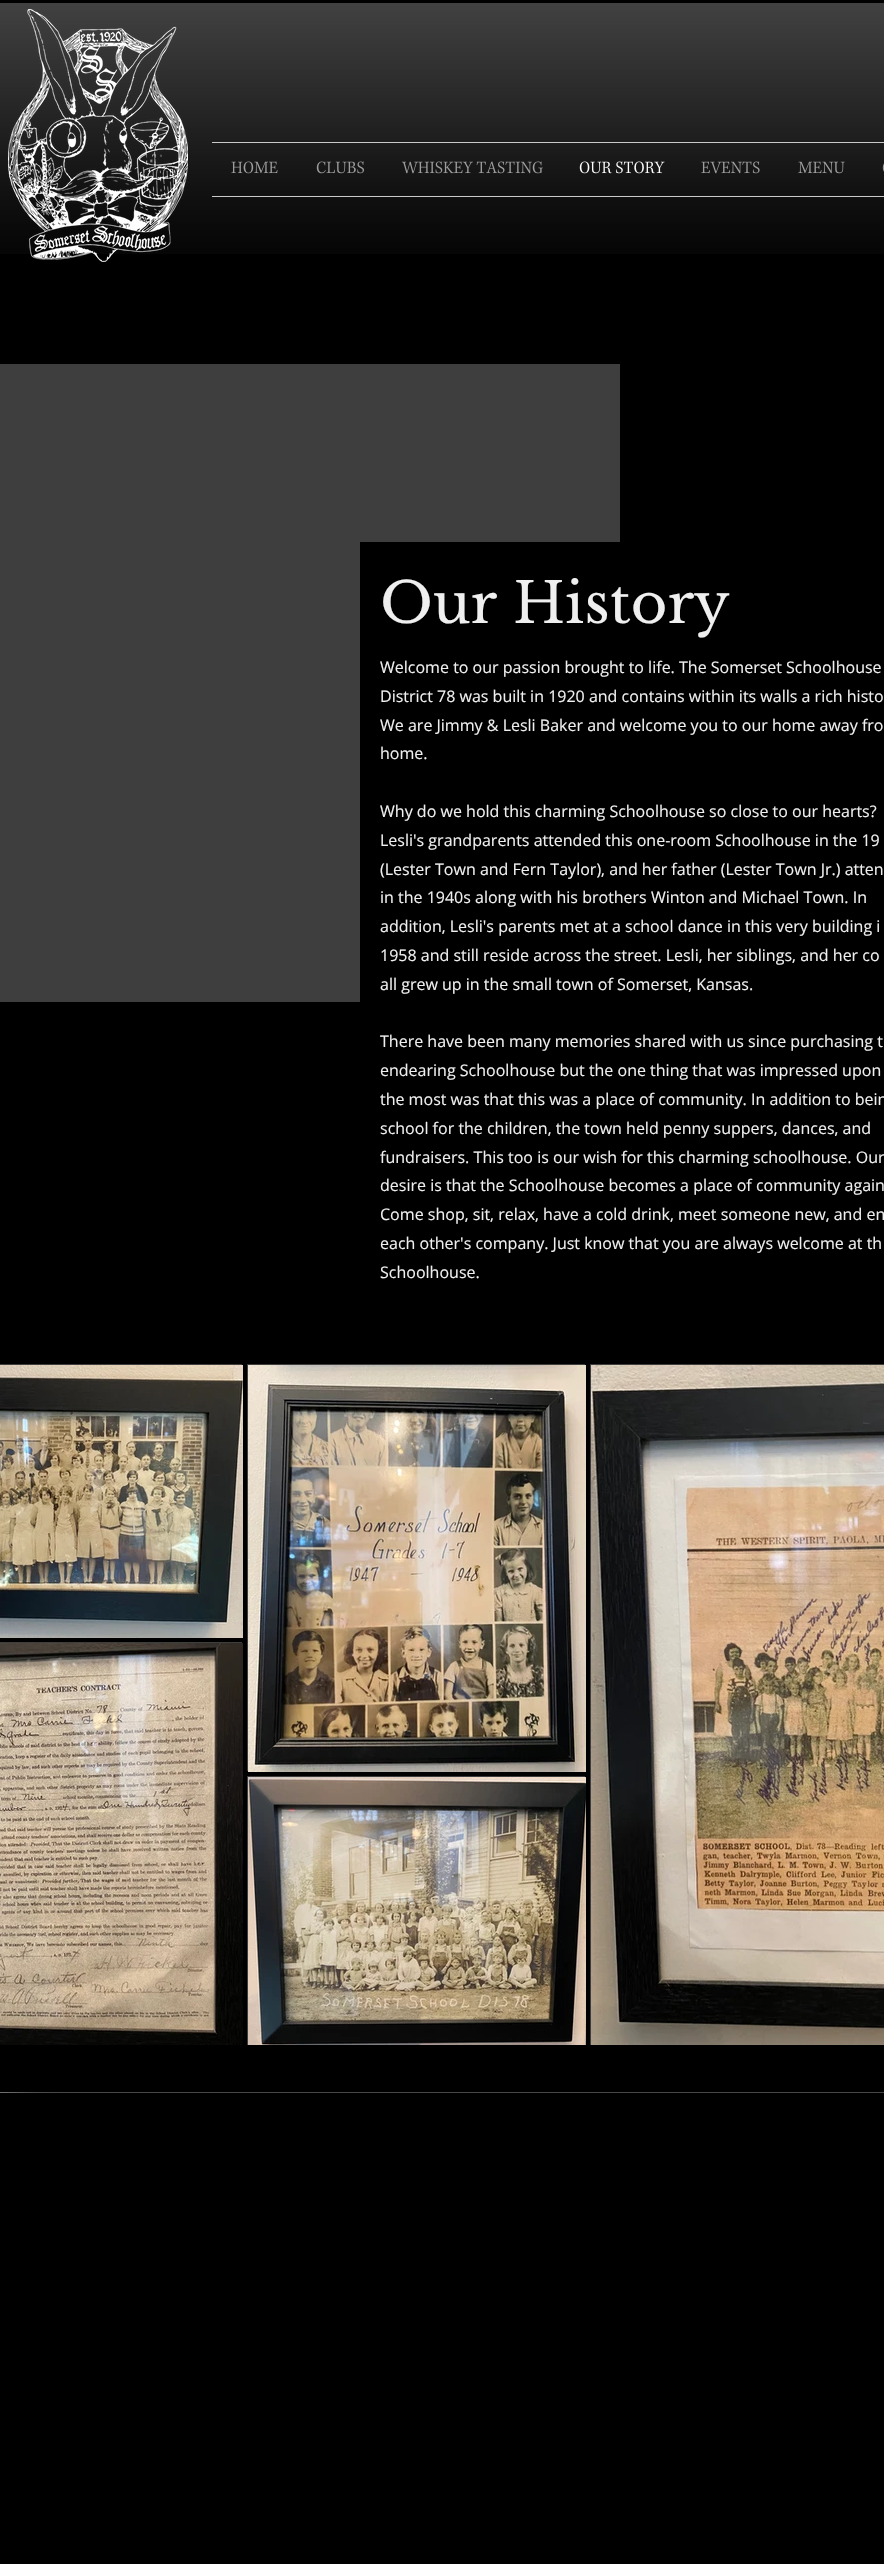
#include "include/core/SkBlurTypes.h"
#include "include/core/SkCanvas.h"
#include "include/core/SkData.h"
#include "include/core/SkFont.h"
#include "include/core/SkFontMgr.h"
#include "include/core/SkImage.h"
#include "include/core/SkMaskFilter.h"
#include "include/core/SkPaint.h"
#include "include/core/SkPathBuilder.h"
#include "include/core/SkTextBlob.h"
#include "include/effects/SkDashPathEffect.h"
#include "include/effects/SkGradientShader.h"
#include "include/utils/SkParsePath.h"

extern sk_sp<SkFontMgr> fontMgr;

void draw(SkCanvas* canvas) {
    SkPaint p;
    p.setAntiAlias(true);
    auto font = [&](const char* family, int weight, float size, bool italic = false) {
        SkFontStyle style(weight, SkFontStyle::kNormal_Width,
            italic ? SkFontStyle::kItalic_Slant : SkFontStyle::kUpright_Slant);
        SkFont result(fontMgr->matchFamilyStyle(family, style), size);
        result.setSubpixel(true);
        return result;
    };
    auto drawPhoto = [&](const char* path, float l, float t, float r, float b) {
        auto image = SkImages::DeferredFromEncodedData(SkData::MakeFromFileName(path));
        canvas->drawImageRect(image, SkRect::MakeLTRB(l, t, r, b), SkSamplingOptions());
    };
    canvas->clear(0xFF000000);
    drawPhoto("media/1.png", 0, 3, 884, 254);
    drawPhoto("media/2.png", 8, 9, 188, 262);
    p.setColor(0xFFCACACA);
    canvas->drawRect(SkRect::MakeLTRB(212, 142, 884, 143), p);
    canvas->drawRect(SkRect::MakeLTRB(212, 196, 884, 197), p);
    drawPhoto("media/3.png", 231, 161, 278, 174);
    drawPhoto("media/4.png", 316, 161, 364, 174);
    drawPhoto("media/5.png", 402, 161, 543, 174);
    drawPhoto("media/6.png", 579, 161, 665, 174);
    drawPhoto("media/7.png", 701, 161, 760, 174);
    drawPhoto("media/8.png", 798, 161, 845, 174);
    drawPhoto("media/9.png", 882, 163, 884, 172);
    p.setColor(0xFF3E3E3E);
    canvas->drawRect(SkRect::MakeLTRB(0, 364, 620, 1002), p);
    p.setColor(0xFF000000);
    canvas->drawRect(SkRect::MakeLTRB(360, 542, 620, 1002), p);
    auto font1 = font("Libre Baskerville", 400, 56);
    p.setColor(0xFFEFEFEF);
    canvas->drawString("Our History", 380, 623, font1, p);
    auto font2 = font("Open Sans", 400, 16);
    {
        const struct { const char* s; float x, y; } items[] = {
            {"Welcome to our passion brought to life. The Somerset Schoolhouse", 380, 673},
            {"District 78 was built in 1920 and contains within its walls a rich histo", 380, 702},
            {"We are Jimmy & Lesli Baker and welcome you to our home away fro", 380, 731},
            {"home.", 380, 759},
            {"Why do we hold this charming Schoolhouse so close to our hearts?", 380, 817},
            {"Lesli's grandparents attended this one-room Schoolhouse in the 19", 380, 846},
            {"(Lester Town and Fern Taylor), and her father (Lester Town Jr.) atten", 380, 875},
            {"in the 1940s along with his brothers Winton and Michael Town. In", 380, 903},
            {"addition, Lesli's parents met at a school dance in this very building i", 380, 932},
            {"1958 and still reside across the street. Lesli, her siblings, and her co", 380, 961},
            {"all grew up in the small town of Somerset, Kansas.", 380, 990},
            {"There have been many memories shared with us since purchasing t", 380, 1047},
            {"endearing Schoolhouse but the one thing that was impressed upon", 380, 1076},
            {"the most was that this was a place of community. In addition to bein", 380, 1105},
            {"school for the children, the town held penny suppers, dances, and", 380, 1134},
            {"fundraisers. This too is our wish for this charming schoolhouse. Our", 380, 1163},
            {"desire is that the Schoolhouse becomes a place of community again", 380, 1191},
            {"Come shop, sit, relax, have a cold drink, meet someone new, and en", 380, 1220},
            {"each other's company. Just know that you are always welcome at th", 380, 1249},
            {"Schoolhouse.", 380, 1278},
        };
        for (auto [s, x, y] : items) {
            canvas->drawString(s, x, y, font2, p);
        }
    }
    p.setColor(0xFF3E3E3E);
    canvas->drawRect(SkRect::MakeLTRB(0, 1364, 242, 1365), p);
    drawPhoto("media/10.png", 0, 1365, 243, 1638);
    canvas->drawRect(SkRect::MakeLTRB(0, 1642, 242, 1643), p);
    drawPhoto("media/11.png", 0, 1643, 243, 2045);
    canvas->drawRect(SkRect::MakeLTRB(247, 1364, 585, 1771), p);
    drawPhoto("media/12.png", 248, 1365, 586, 1772);
    canvas->drawRect(SkRect::MakeLTRB(247, 1776, 585, 2045), p);
    drawPhoto("media/13.png", 248, 1777, 586, 2045);
    canvas->drawRect(SkRect::MakeLTRB(590, 1364, 884, 2045), p);
    drawPhoto("media/14.png", 591, 1365, 884, 2045);
    p.setColor(0xFF6E6C6C);
    canvas->drawRect(SkRect::MakeLTRB(0, 2092, 100, 2093), p);
    drawPhoto("media/15.png", 7, 2092, 100, 2093);
    p.setColor(0xFF484646);
    canvas->drawRect(SkRect::MakeLTRB(100, 2092, 884, 2093), p);
}
